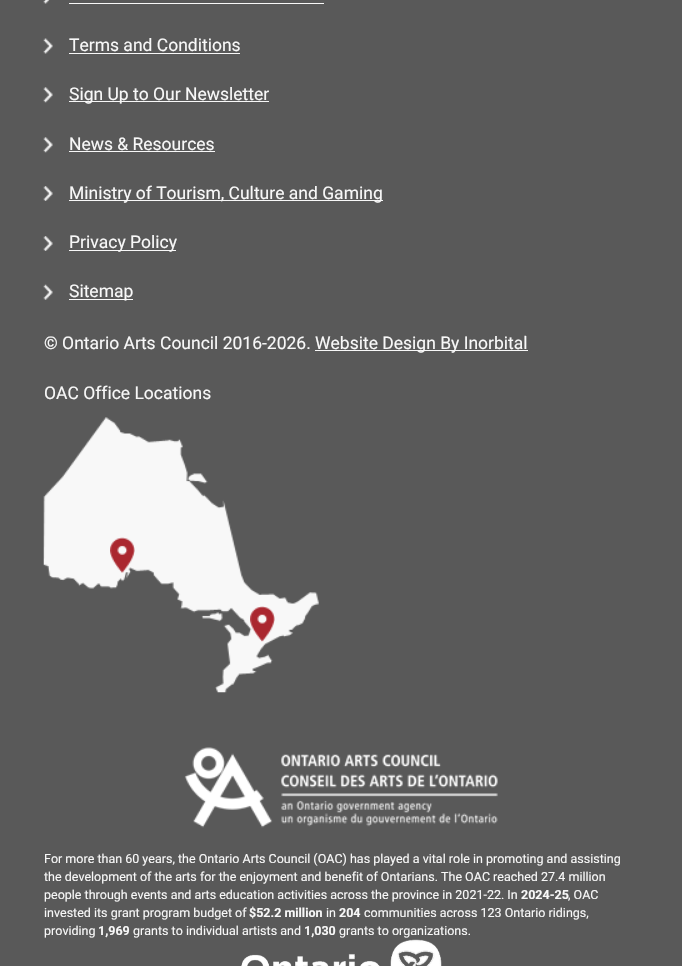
#include "include/core/SkBlurTypes.h"
#include "include/core/SkCanvas.h"
#include "include/core/SkData.h"
#include "include/core/SkFont.h"
#include "include/core/SkFontMgr.h"
#include "include/core/SkImage.h"
#include "include/core/SkMaskFilter.h"
#include "include/core/SkPaint.h"
#include "include/core/SkPathBuilder.h"
#include "include/core/SkTextBlob.h"
#include "include/effects/SkDashPathEffect.h"
#include "include/effects/SkGradientShader.h"
#include "include/utils/SkParsePath.h"

extern sk_sp<SkFontMgr> fontMgr;

void draw(SkCanvas* canvas) {
    SkPaint p;
    p.setAntiAlias(true);
    auto font = [&](const char* family, int weight, float size, bool italic = false) {
        SkFontStyle style(weight, SkFontStyle::kNormal_Width,
            italic ? SkFontStyle::kItalic_Slant : SkFontStyle::kUpright_Slant);
        SkFont result(fontMgr->matchFamilyStyle(family, style), size);
        result.setSubpixel(true);
        return result;
    };
    auto drawPhoto = [&](const char* path, float l, float t, float r, float b) {
        auto image = SkImages::DeferredFromEncodedData(SkData::MakeFromFileName(path));
        canvas->drawImageRect(image, SkRect::MakeLTRB(l, t, r, b), SkSamplingOptions());
    };
    canvas->clear(0xFF595959);
    drawPhoto("media/1.png", 43, 0, 50, 4);
    p.setColor(0xFFF8F8F8);
    canvas->drawRect(SkRect::MakeLTRB(69, 3, 324, 4), p);
    drawPhoto("media/2.png", 43, 38, 53, 54);
    auto font1 = font("Roboto", 400, 17.5f);
    canvas->drawString("Terms and Conditions", 69, 51, font1, p);
    canvas->drawRect(SkRect::MakeLTRB(69, 53, 240, 54), p);
    drawPhoto("media/3.png", 43, 87, 53, 103);
    canvas->drawRect(SkRect::MakeLTRB(69, 101, 269, 102), p);
    canvas->drawString("Sign Up to Our Newsletter", 69, 100, font1, p);
    drawPhoto("media/3.png", 43, 137, 53, 153);
    canvas->drawString("News & Resources", 69, 150, font1, p);
    canvas->drawRect(SkRect::MakeLTRB(69, 151, 215, 152), p);
    drawPhoto("media/4.png", 43, 186, 53, 201);
    canvas->drawRect(SkRect::MakeLTRB(69, 200, 383, 201), p);
    canvas->drawString("Ministry of Tourism, Culture and Gaming", 69, 199, font1, p);
    drawPhoto("media/4.png", 43, 236, 53, 251);
    canvas->drawRect(SkRect::MakeLTRB(69, 250, 176, 251), p);
    canvas->drawString("Privacy Policy", 69, 248, font1, p);
    drawPhoto("media/5.png", 43, 284, 53, 300);
    canvas->drawRect(SkRect::MakeLTRB(69, 299, 133, 300), p);
    canvas->drawString("Sitemap", 69, 297, font1, p);
    canvas->drawString("© Ontario Arts Council 2016-2026.", 44, 349, font1, p);
    canvas->drawRect(SkRect::MakeLTRB(315, 350, 528, 351), p);
    canvas->drawString("Website Design By Inorbital", 315, 349, font1, p);
    canvas->drawString("OAC Office Locations", 44, 399, font1, p);
    drawPhoto("media/6.png", 43, 417, 319, 693);
    drawPhoto("media/7.png", 110, 537, 135, 573);
    drawPhoto("media/8.png", 250, 606, 275, 642);
    drawPhoto("media/9.png", 184, 747, 498, 828);
    auto font2 = font("Roboto", 400, 12.5f);
    {
        const struct { const char* s; float x, y; } items[] = {
            {"For more than 60 years, the Ontario Arts Council (OAC) has played a vital role in promoting and assisting", 44, 863},
            {"the development of the arts for the enjoyment and benefit of Ontarians. The OAC reached 27.4 million", 44, 881},
            {"people through events and arts education activities across the province in 2021-22. In", 44, 899},
        };
        for (auto [s, x, y] : items) {
            canvas->drawString(s, x, y, font2, p);
        }
    }
    auto font3 = font("Roboto", 700, 12.5f);
    canvas->drawString("2024-25", 521, 899, font3, p);
    canvas->drawString(", OAC", 568, 899, font2, p);
    canvas->drawString("invested its grant program budget of", 44, 917, font2, p);
    canvas->drawString("$52.2 million", 249, 917, font3, p);
    canvas->drawString("in", 326, 917, font2, p);
    canvas->drawString("204", 339, 917, font3, p);
    canvas->drawString("communities across 123 Ontario ridings,", 364, 917, font2, p);
    canvas->drawString("providing", 44, 935, font2, p);
    canvas->drawString("1,969", 98, 935, font3, p);
    canvas->drawString("grants to individual artists and", 133, 935, font2, p);
    canvas->drawString("1,030", 304, 935, font3, p);
    canvas->drawString("grants to organizations.", 339, 935, font2, p);
    drawPhoto("media/10.png", 241, 939, 442, 966);
}
